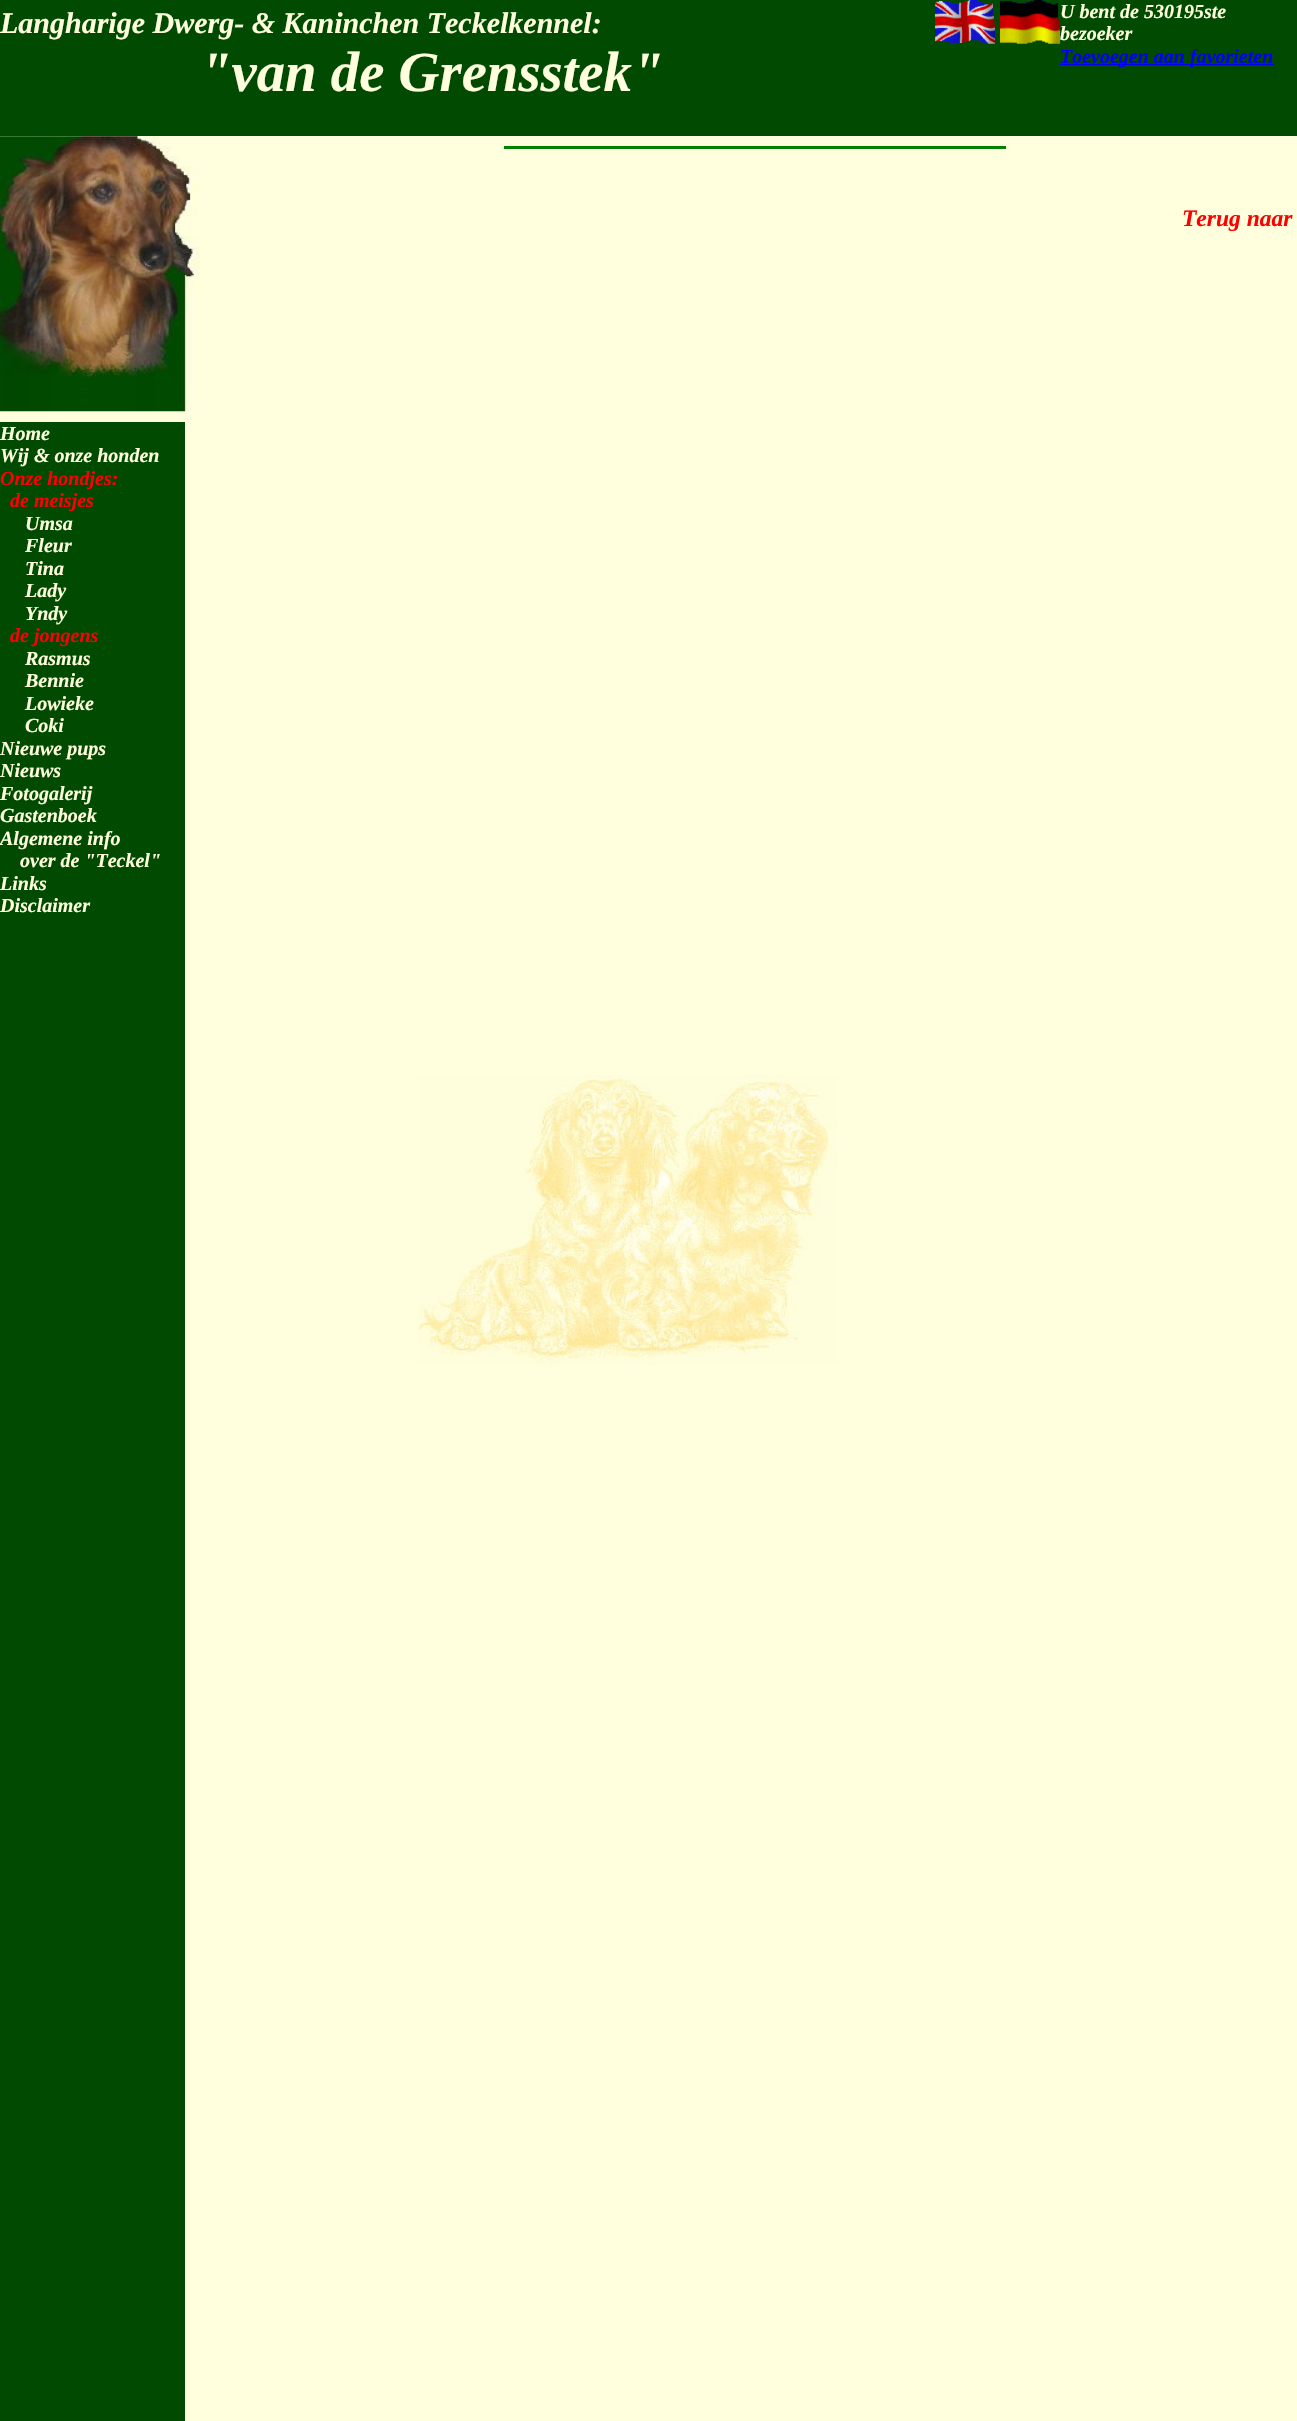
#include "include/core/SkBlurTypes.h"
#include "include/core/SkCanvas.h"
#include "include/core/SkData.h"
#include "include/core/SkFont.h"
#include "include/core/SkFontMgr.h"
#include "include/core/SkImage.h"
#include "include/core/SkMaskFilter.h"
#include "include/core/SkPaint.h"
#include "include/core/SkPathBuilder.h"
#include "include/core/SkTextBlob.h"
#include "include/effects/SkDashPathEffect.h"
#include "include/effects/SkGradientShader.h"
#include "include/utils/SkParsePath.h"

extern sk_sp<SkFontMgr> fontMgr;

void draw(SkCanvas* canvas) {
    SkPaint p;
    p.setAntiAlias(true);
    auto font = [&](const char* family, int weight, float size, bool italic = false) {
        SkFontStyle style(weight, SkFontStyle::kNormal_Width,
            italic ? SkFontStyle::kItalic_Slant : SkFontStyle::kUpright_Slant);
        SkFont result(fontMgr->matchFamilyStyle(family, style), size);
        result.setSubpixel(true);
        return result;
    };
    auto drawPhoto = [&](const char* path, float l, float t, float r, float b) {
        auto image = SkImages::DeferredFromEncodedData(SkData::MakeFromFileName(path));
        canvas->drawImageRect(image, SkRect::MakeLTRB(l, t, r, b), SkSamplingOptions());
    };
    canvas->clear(0xFFFFFFDD);
    drawPhoto("media/1.png", 418, 1075, 838, 1365);
    p.setColor(0xFF014A01);
    canvas->drawRect(SkRect::MakeLTRB(0, 0, 1297, 136), p);
    auto font1 = font("Liberation Serif", 700, 30, true);
    p.setColor(0xFFFFFFDD);
    canvas->drawString("Langharige Dwerg- & Kaninchen Teckelkennel:", 0, 33, font1, p);
    auto font2 = font("Liberation Serif", 700, 56.75f, true);
    canvas->drawString("\"van de Grensstek\"", 200, 91, font2, p);
    drawPhoto("media/2.png", 935, 0, 995, 44);
    drawPhoto("media/3.png", 1000, 0, 1060, 44);
    auto font3 = font("Liberation Serif", 700, 20, true);
    canvas->drawString("U bent de 530195ste", 1060, 18, font3, p);
    canvas->drawString("bezoeker", 1060, 40, font3, p);
    p.setColor(0xFF0000EE);
    canvas->drawRect(SkRect::MakeLTRB(1060, 64, 1274, 65), p);
    canvas->drawString("Toevoegen aan favorieten", 1060, 63, font3, p);
    p.setColor(0xFF014A01);
    canvas->drawRect(SkRect::MakeLTRB(0, 918, 185, 2421), p);
    p.setColor(0xFF008000);
    canvas->drawRect(SkRect::MakeLTRB(504, 146, 1006, 149), p);
    auto font4 = font("Liberation Serif", 700, 23.5f, true);
    p.setColor(0xFFFF0000);
    canvas->drawString("Terug naar", 1182, 226, font4, p);
    drawPhoto("media/4.png", 0, 136, 200, 412);
    p.setColor(0xFF014A01);
    canvas->drawRect(SkRect::MakeLTRB(0, 422, 185, 918), p);
    p.setColor(0xFFFFFFDD);
    canvas->drawString("Home", 0, 440, font3, p);
    canvas->drawString("Wij & onze honden", 0, 462, font3, p);
    p.setColor(0xFFFF0000);
    canvas->drawString("Onze hondjes:", 0, 485, font3, p);
    canvas->drawString("de meisjes", 10, 507, font3, p);
    p.setColor(0xFFFFFFDD);
    {
        const struct { const char* s; float x, y; } items[] = {
            {"Umsa", 25, 530},
            {"Fleur", 25, 552},
            {"Tina", 25, 575},
            {"Lady", 25, 597},
            {"Yndy", 25, 620},
        };
        for (auto [s, x, y] : items) {
            canvas->drawString(s, x, y, font3, p);
        }
    }
    p.setColor(0xFFFF0000);
    canvas->drawString("de jongens", 10, 642, font3, p);
    p.setColor(0xFFFFFFDD);
    {
        const struct { const char* s; float x, y; } items[] = {
            {"Rasmus", 25, 665},
            {"Bennie", 25, 687},
            {"Lowieke", 25, 710},
            {"Coki", 25, 732},
            {"Nieuwe pups", 0, 755},
            {"Nieuws", 0, 777},
            {"Fotogalerij", 0, 800},
            {"Gastenboek", 0, 822},
            {"Algemene info", 0, 845},
            {"over de \"Teckel\"", 20, 867},
            {"Links", 0, 890},
            {"Disclaimer", 0, 912},
        };
        for (auto [s, x, y] : items) {
            canvas->drawString(s, x, y, font3, p);
        }
    }
}
